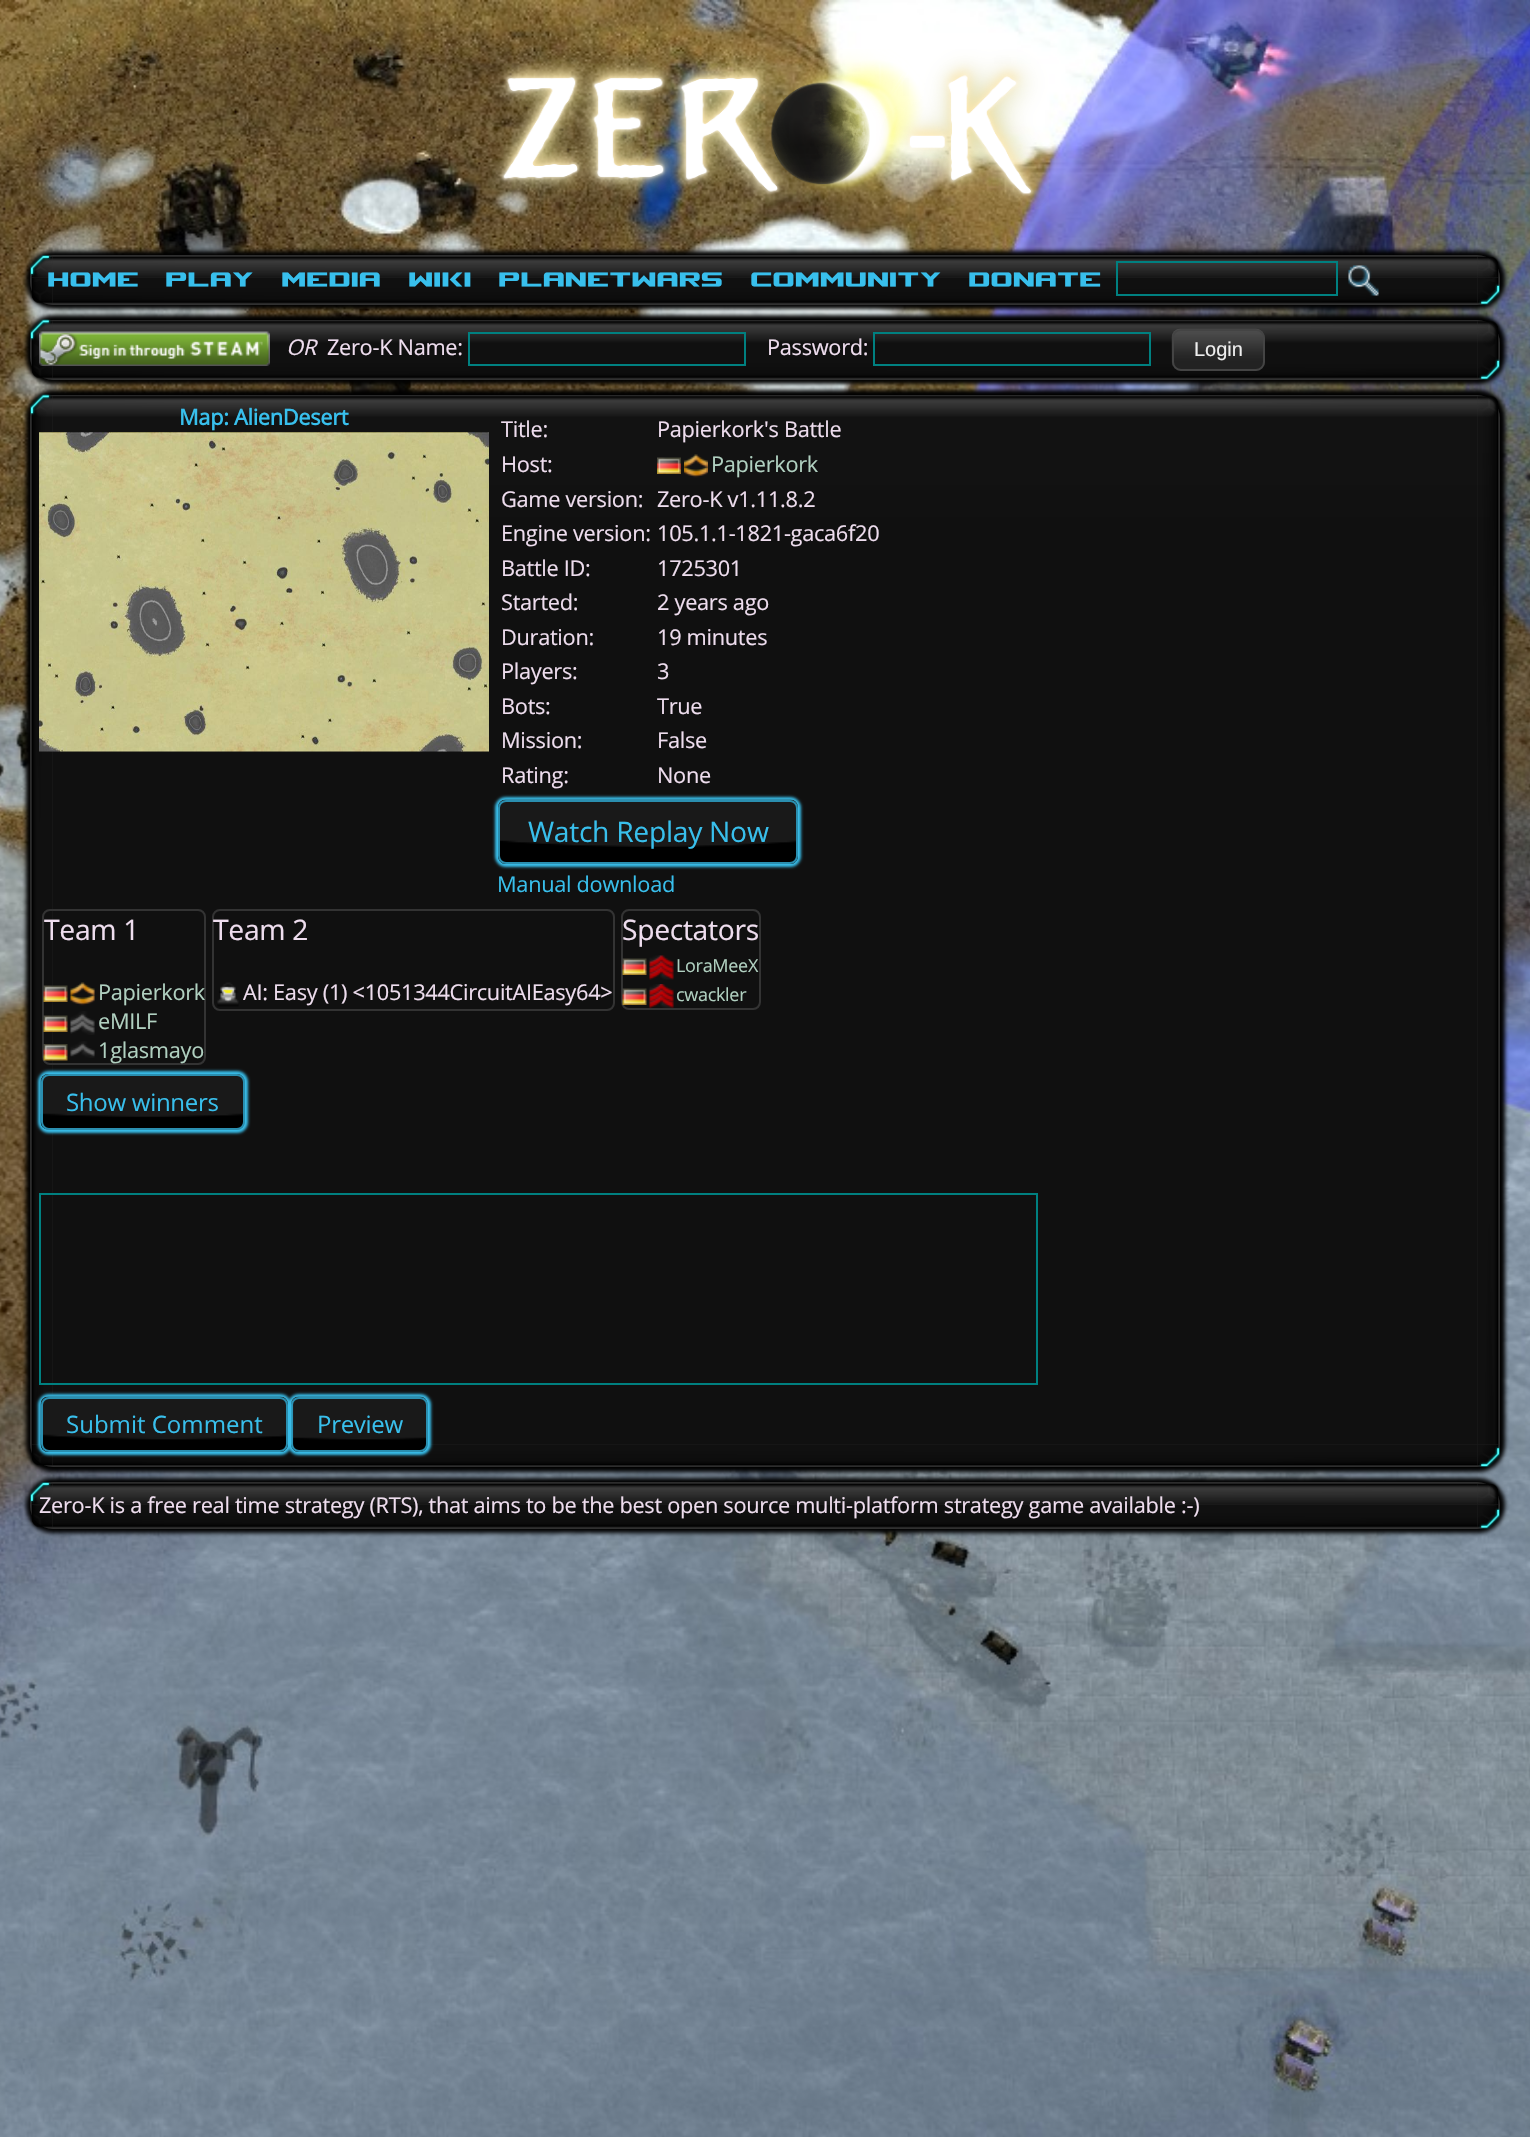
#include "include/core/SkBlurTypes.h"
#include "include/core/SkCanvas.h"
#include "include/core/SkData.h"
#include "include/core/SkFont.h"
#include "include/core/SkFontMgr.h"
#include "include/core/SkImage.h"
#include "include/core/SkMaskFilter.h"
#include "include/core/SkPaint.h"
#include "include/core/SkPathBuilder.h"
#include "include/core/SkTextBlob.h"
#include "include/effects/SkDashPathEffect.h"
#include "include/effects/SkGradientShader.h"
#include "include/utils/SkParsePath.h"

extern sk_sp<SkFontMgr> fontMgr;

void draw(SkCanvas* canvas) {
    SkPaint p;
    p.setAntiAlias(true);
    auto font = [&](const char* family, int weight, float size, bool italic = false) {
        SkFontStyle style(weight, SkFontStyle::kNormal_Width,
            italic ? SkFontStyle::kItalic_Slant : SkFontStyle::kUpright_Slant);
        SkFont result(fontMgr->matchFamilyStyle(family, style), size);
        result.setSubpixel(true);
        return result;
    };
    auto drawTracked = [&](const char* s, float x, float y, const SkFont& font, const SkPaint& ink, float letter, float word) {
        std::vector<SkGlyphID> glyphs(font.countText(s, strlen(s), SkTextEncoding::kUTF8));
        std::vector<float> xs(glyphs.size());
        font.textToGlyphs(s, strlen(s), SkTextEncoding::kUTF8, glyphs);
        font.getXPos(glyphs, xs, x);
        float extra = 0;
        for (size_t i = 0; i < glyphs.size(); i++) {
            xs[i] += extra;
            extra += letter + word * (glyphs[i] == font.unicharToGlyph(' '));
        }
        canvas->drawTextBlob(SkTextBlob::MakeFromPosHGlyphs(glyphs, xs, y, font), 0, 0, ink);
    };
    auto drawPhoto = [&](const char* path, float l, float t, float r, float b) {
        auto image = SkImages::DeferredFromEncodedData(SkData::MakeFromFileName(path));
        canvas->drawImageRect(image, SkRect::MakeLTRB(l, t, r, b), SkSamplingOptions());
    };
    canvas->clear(0xFFFFFFFF);
    drawPhoto("media/1.png", 0, 0, 1530, 2137);
    drawPhoto("media/2.png", 490, 49, 1049, 209);
    p.setColor(0xFF000000);
    p.setMaskFilter(SkMaskFilter::MakeBlur(kNormal_SkBlurStyle, 2));
    canvas->drawRoundRect(SkRect::MakeLTRB(26, 251, 1505, 309), 27, 27, p);
    p.setMaskFilter(nullptr);
    p.setColor(0xFF333333);
    canvas->drawRoundRect(SkRect::MakeLTRB(30, 255, 1500, 305), 23, 23, p);
    drawPhoto("media/3.png", 30, 255, 1500, 305);
    auto font1 = font("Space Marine", 400, 22.5f);
    p.setColor(0xFF38BFEC);
    {
        const struct { const char* s; float x, y; } items[] = {
            {"Home", 47, 288},
            {"Play", 165, 288},
            {"Media", 281, 288},
            {"Wiki", 408, 288},
            {"PlanetWars", 498, 288},
            {"Community", 750, 288},
            {"Donate", 968, 288},
        };
        for (auto [s, x, y] : items) {
            drawTracked(s, x, y, font1, p, -0.3f, 0);
        }
    }
    p.setStyle(SkPaint::kStroke_Style);
    p.setStrokeWidth(2);
    p.setColor(0xFF008080);
    canvas->drawRect(SkRect::MakeLTRB(1117, 262, 1337, 295), p);
    drawPhoto("media/4.png", 1348, 265, 1379, 296);
    p.setStyle(SkPaint::kFill_Style);
    p.setColor(0xFF000000);
    p.setMaskFilter(SkMaskFilter::MakeBlur(kNormal_SkBlurStyle, 2));
    canvas->drawRoundRect(SkRect::MakeLTRB(26, 315, 1505, 384), 27, 27, p);
    p.setMaskFilter(nullptr);
    p.setColor(0xFF333333);
    canvas->drawRoundRect(SkRect::MakeLTRB(30, 320, 1500, 380), 23, 23, p);
    drawPhoto("media/5.png", 30, 319, 1500, 380);
    drawPhoto("media/6.png", 39, 331, 270, 366);
    auto font2 = font("Open Sans", 400, 21.75f, true);
    p.setColor(0xFFEEDDEE);
    drawTracked("OR", 286, 355, font2, p, -0.3f, 0);
    auto font3 = font("Open Sans", 400, 21.75f);
    drawTracked("Zero-K Name:", 327, 355, font3, p, -0.3f, 0);
    p.setStyle(SkPaint::kStroke_Style);
    p.setColor(0xFF008080);
    canvas->drawRect(SkRect::MakeLTRB(469, 333, 745, 365), p);
    p.setStyle(SkPaint::kFill_Style);
    p.setColor(0xFFEEDDEE);
    drawTracked("Password:", 767, 355, font3, p, -0.3f, 0);
    p.setStyle(SkPaint::kStroke_Style);
    p.setColor(0xFF008080);
    canvas->drawRect(SkRect::MakeLTRB(874, 333, 1150, 365), p);
    p.setStyle(SkPaint::kFill_Style);
    p.setColor(0xFF222222);
    canvas->drawRoundRect(SkRect::MakeLTRB(1172, 329, 1265, 371), 9, 9, p);
    drawPhoto("media/7.png", 1171, 328, 1265, 366);
    p.setStyle(SkPaint::kStroke_Style);
    p.setColor(0xFF444444);
    canvas->drawRoundRect(SkRect::MakeLTRB(1173, 330, 1264, 370), 8, 8, p);
    auto font4 = font("Liberation Sans", 400, 20);
    p.setStyle(SkPaint::kFill_Style);
    p.setColor(0xFFEEEEEE);
    canvas->drawString("Login", 1194, 356, font4, p);
    p.setColor(0xFF000000);
    p.setMaskFilter(SkMaskFilter::MakeBlur(kNormal_SkBlurStyle, 2));
    canvas->drawRoundRect(SkRect::MakeLTRB(26, 390, 1505, 1472), 27, 27, p);
    p.setMaskFilter(nullptr);
    p.setColor(0xFF333333);
    canvas->drawRoundRect(SkRect::MakeLTRB(30, 395, 1500, 1467), 23, 23, p);
    drawPhoto("media/8.png", 30, 394, 1500, 1467);
    auto font5 = font("Open Sans", 700, 21.75f);
    p.setColor(0xFF38BFEC);
    drawTracked("Map: AlienDesert", 179, 425, font5, p, -0.3f, 0);
    drawPhoto("media/9.png", 39, 432, 489, 752);
    p.setColor(0xFFEEDDEE);
    {
        const struct { const char* s; float x, y; } items[] = {
            {"Title:", 501, 437},
            {"Papierkork's Battle", 657, 437},
            {"Host:", 501, 472},
        };
        for (auto [s, x, y] : items) {
            drawTracked(s, x, y, font3, p, -0.3f, 0);
        }
    }
    drawPhoto("media/10.png", 657, 457, 681, 474);
    drawPhoto("media/11.png", 684, 454, 708, 478);
    p.setColor(0xFFB0D0C0);
    drawTracked("Papierkork", 711, 472, font3, p, -0.3f, 0);
    p.setColor(0xFFEEDDEE);
    {
        const struct { const char* s; float x, y; } items[] = {
            {"Game version:", 501, 507},
            {"Zero-K v1.11.8.2", 657, 507},
            {"Engine version:", 501, 541},
            {"105.1.1-1821-gaca6f20", 657, 541},
            {"Battle ID:", 501, 576},
            {"1725301", 657, 576},
            {"Started:", 501, 610},
            {"2 years ago", 657, 610},
            {"Duration:", 501, 645},
            {"19 minutes", 657, 645},
            {"Players:", 501, 679},
            {"3", 657, 679},
            {"Bots:", 501, 714},
            {"True", 657, 714},
            {"Mission:", 501, 748},
            {"False", 657, 748},
            {"Rating:", 501, 783},
            {"None", 657, 783},
        };
        for (auto [s, x, y] : items) {
            drawTracked(s, x, y, font3, p, -0.3f, 0);
        }
    }
    p.setColor(0xFF38BFEC);
    p.setMaskFilter(SkMaskFilter::MakeBlur(kNormal_SkBlurStyle, 1.5f));
    canvas->drawRoundRect(SkRect::MakeLTRB(495, 797, 801, 867), 11, 11, p);
    p.setMaskFilter(nullptr);
    drawPhoto("media/12.png", 498, 799, 798, 864);
    p.setStyle(SkPaint::kStroke_Style);
    p.setColor(0xFF2A8EAF);
    canvas->drawRoundRect(SkRect::MakeLTRB(499, 801, 797, 863), 7, 7, p);
    auto font6 = font("Open Sans", 400, 28.25f);
    p.setStyle(SkPaint::kFill_Style);
    p.setColor(0xFF38BFEC);
    drawTracked("Watch Replay Now", 528, 842, font6, p, -0.3f, 0);
    drawTracked("Manual download", 497, 892, font3, p, -0.3f, 0);
    p.setStyle(SkPaint::kStroke_Style);
    p.setColor(0xFF333333);
    canvas->drawRoundRect(SkRect::MakeLTRB(43, 910, 205, 1064), 7, 7, p);
    p.setStyle(SkPaint::kFill_Style);
    p.setColor(0xFFEEDDEE);
    drawTracked("Team 1", 44, 940, font6, p, -0.3f, 0);
    drawPhoto("media/13.png", 43, 985, 68, 1002);
    drawPhoto("media/14.png", 70, 982, 95, 1006);
    p.setColor(0xFFB0D0C0);
    drawTracked("Papierkork", 98, 1000, font3, p, -0.3f, 0);
    drawPhoto("media/13.png", 43, 1015, 68, 1032);
    drawPhoto("media/15.png", 70, 1011, 95, 1035);
    drawTracked("eMILF", 98, 1029, font3, p, -0.3f, 0);
    drawPhoto("media/16.png", 43, 1044, 68, 1061);
    drawPhoto("media/17.png", 70, 1041, 95, 1058);
    drawTracked("1glasmayo", 98, 1058, font3, p, -0.3f, 0);
    p.setStyle(SkPaint::kStroke_Style);
    p.setColor(0xFF333333);
    canvas->drawRoundRect(SkRect::MakeLTRB(213, 910, 614, 1010), 7, 7, p);
    p.setStyle(SkPaint::kFill_Style);
    p.setColor(0xFFEEDDEE);
    drawTracked("Team 2", 213, 940, font6, p, -0.3f, 0);
    drawPhoto("media/18.png", 217, 982, 239, 1007);
    drawTracked("AI: Easy (1) <1051344CircuitAIEasy64>", 243, 1000, font3, p, -0.3f, 0);
    p.setStyle(SkPaint::kStroke_Style);
    p.setColor(0xFF333333);
    canvas->drawRoundRect(SkRect::MakeLTRB(622, 910, 760, 1009), 7, 7, p);
    p.setStyle(SkPaint::kFill_Style);
    p.setColor(0xFFEEDDEE);
    drawTracked("Spectators", 622, 940, font6, p, -0.3f, 0);
    drawPhoto("media/19.png", 622, 958, 647, 975);
    drawPhoto("media/20.png", 649, 955, 674, 980);
    auto font7 = font("Open Sans", 400, 18);
    p.setColor(0xFFB0D0C0);
    drawTracked("LoraMeeX", 676, 972, font7, p, -0.3f, 0);
    drawPhoto("media/19.png", 622, 988, 647, 1005);
    drawPhoto("media/21.png", 649, 984, 674, 1008);
    drawTracked("cwackler", 676, 1001, font7, p, -0.3f, 0);
    p.setColor(0xFF38BFEC);
    p.setMaskFilter(SkMaskFilter::MakeBlur(kNormal_SkBlurStyle, 1.5f));
    canvas->drawRoundRect(SkRect::MakeLTRB(38, 1071, 248, 1133), 11, 11, p);
    p.setMaskFilter(nullptr);
    drawPhoto("media/22.png", 40, 1074, 245, 1130);
    p.setStyle(SkPaint::kStroke_Style);
    p.setColor(0xFF2A8EAF);
    canvas->drawRoundRect(SkRect::MakeLTRB(42, 1075, 244, 1129), 7, 7, p);
    auto font8 = font("Open Sans", 400, 24);
    p.setStyle(SkPaint::kFill_Style);
    p.setColor(0xFF38BFEC);
    drawTracked("Show winners", 66, 1111, font8, p, -0.3f, 0);
    p.setStyle(SkPaint::kStroke_Style);
    p.setColor(0xFF008080);
    canvas->drawRect(SkRect::MakeLTRB(40, 1194, 1037, 1384), p);
    p.setStyle(SkPaint::kFill_Style);
    p.setColor(0xFF38BFEC);
    p.setMaskFilter(SkMaskFilter::MakeBlur(kNormal_SkBlurStyle, 1.5f));
    canvas->drawRoundRect(SkRect::MakeLTRB(288, 1394, 431, 1455), 11, 11, p);
    p.setMaskFilter(nullptr);
    drawPhoto("media/24.png", 291, 1396, 428, 1452);
    p.setStyle(SkPaint::kStroke_Style);
    p.setColor(0xFF2A8EAF);
    canvas->drawRoundRect(SkRect::MakeLTRB(292, 1398, 427, 1451), 7, 7, p);
    p.setStyle(SkPaint::kFill_Style);
    p.setColor(0xFF38BFEC);
    p.setMaskFilter(SkMaskFilter::MakeBlur(kNormal_SkBlurStyle, 1.5f));
    canvas->drawRoundRect(SkRect::MakeLTRB(38, 1394, 291, 1455), 11, 11, p);
    p.setMaskFilter(nullptr);
    drawPhoto("media/23.png", 40, 1396, 288, 1452);
    p.setStyle(SkPaint::kStroke_Style);
    p.setColor(0xFF2A8EAF);
    canvas->drawRoundRect(SkRect::MakeLTRB(42, 1398, 287, 1451), 7, 7, p);
    p.setStyle(SkPaint::kFill_Style);
    p.setColor(0xFF38BFEC);
    canvas->drawString("Submit Comment", 66, 1433, font8, p);
    drawTracked("Preview", 317, 1433, font8, p, -0.3f, 0);
    p.setColor(0xFF000000);
    p.setMaskFilter(SkMaskFilter::MakeBlur(kNormal_SkBlurStyle, 2));
    canvas->drawRoundRect(SkRect::MakeLTRB(26, 1478, 1505, 1533), 27, 27, p);
    p.setMaskFilter(nullptr);
    p.setColor(0xFF333333);
    canvas->drawRoundRect(SkRect::MakeLTRB(30, 1482, 1500, 1529), 23, 23, p);
    drawPhoto("media/25.png", 30, 1482, 1500, 1529);
    p.setColor(0xFFEEDDEE);
    drawTracked("Zero-K is a free real time strategy (RTS), that aims to be the best open source multi-platform strategy game available :-)", 39, 1513, font3, p, -0.3f, 0);
}
